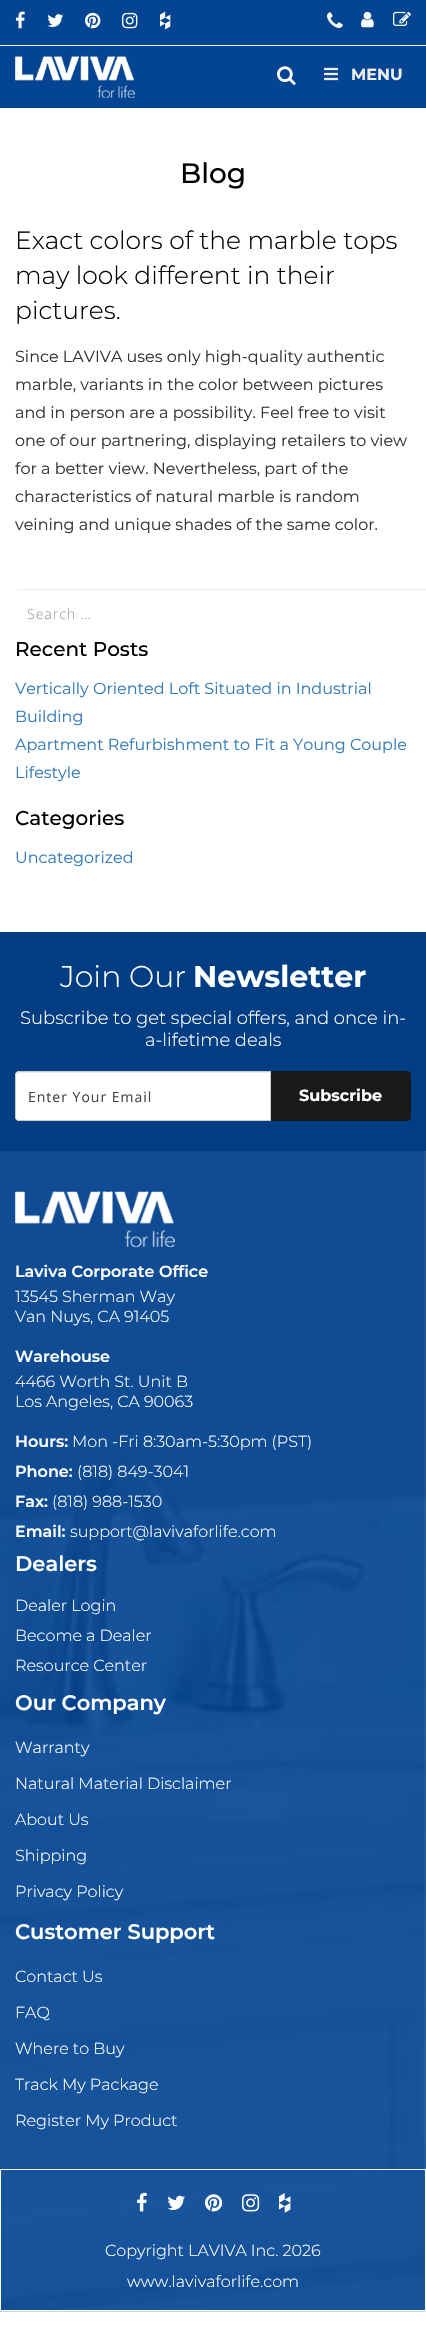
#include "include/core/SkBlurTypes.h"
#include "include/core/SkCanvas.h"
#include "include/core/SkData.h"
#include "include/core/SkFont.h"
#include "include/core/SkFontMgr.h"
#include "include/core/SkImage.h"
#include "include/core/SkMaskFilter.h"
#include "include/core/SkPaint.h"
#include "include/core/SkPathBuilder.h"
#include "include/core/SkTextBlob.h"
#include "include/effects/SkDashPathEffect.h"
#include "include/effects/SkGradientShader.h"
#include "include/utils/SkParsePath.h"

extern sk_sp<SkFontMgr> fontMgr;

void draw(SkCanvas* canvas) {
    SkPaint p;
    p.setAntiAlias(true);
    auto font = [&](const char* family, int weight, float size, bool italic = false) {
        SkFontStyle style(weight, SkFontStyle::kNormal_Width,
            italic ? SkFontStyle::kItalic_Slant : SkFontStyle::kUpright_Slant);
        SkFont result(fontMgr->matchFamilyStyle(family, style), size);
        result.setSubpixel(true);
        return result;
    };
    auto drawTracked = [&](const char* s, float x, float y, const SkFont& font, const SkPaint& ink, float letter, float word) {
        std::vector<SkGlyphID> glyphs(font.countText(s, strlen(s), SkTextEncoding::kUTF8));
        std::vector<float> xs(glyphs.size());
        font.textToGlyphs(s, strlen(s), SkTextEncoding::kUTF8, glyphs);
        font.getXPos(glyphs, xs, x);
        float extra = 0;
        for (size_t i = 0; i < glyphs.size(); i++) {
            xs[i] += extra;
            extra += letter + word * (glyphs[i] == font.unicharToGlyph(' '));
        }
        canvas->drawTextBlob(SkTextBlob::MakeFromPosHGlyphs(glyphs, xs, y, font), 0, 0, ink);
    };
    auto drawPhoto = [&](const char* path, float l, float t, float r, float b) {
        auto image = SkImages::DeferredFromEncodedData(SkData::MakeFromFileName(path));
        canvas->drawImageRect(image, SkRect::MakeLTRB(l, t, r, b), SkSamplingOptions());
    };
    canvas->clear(0xFFFFFFFF);
    p.setColor(0xFF034592);
    canvas->drawRect(SkRect::MakeLTRB(0, 0, 426, 108), p);
    p.setColor(0xFFFFFFFF);
    canvas->drawRect(SkRect::MakeLTRB(0, 45, 426, 46), p);
    drawPhoto("media/1.png", 15, 11, 25, 29);
    drawPhoto("media/2.png", 47, 14, 64, 27);
    drawPhoto("media/3.png", 85, 12, 101, 29);
    drawPhoto("media/4.png", 122, 12, 138, 29);
    drawPhoto("media/5.png", 160, 11, 171, 30);
    drawPhoto("media/6.png", 361, 11, 374, 28);
    drawPhoto("media/7.png", 393, 11, 411, 26);
    drawPhoto("media/8.png", 15, 55, 135, 98);
    drawPhoto("media/9.png", 327, 12, 343, 28);
    drawPhoto("media/10.png", 277, 66, 296, 85);
    drawPhoto("media/11.png", 324, 67, 338, 81);
    auto font1 = font("Montserrat", 700, 16);
    p.setColor(0xFFEEEEEE);
    canvas->drawString("MENU", 351, 80, font1, p);
    auto font2 = font("Montserrat", 500, 28);
    p.setColor(0xFF000000);
    canvas->drawString("Blog", 180, 183, font2, p);
    auto font3 = font("Montserrat", 300, 25);
    {
        const struct { const char* s; float x, y; } items[] = {
            {"Exact colors of the marble tops", 15, 249},
            {"may look different in their", 15, 284},
            {"pictures.", 15, 319},
        };
        for (auto [s, x, y] : items) {
            canvas->drawString(s, x, y, font3, p);
        }
    }
    auto font4 = font("Montserrat", 400, 16);
    p.setColor(0xFF333333);
    {
        const struct { const char* s; float x, y; } items[] = {
            {"Since LAVIVA uses only high-quality authentic", 15, 362},
            {"marble, variants in the color between pictures", 15, 390},
            {"and in person are a possibility. Feel free to visit", 15, 418},
            {"one of our partnering, displaying retailers to view", 15, 446},
            {"for a better view. Nevertheless, part of the", 15, 474},
            {"characteristics of natural marble is random", 15, 502},
            {"veining and unique shades of the same color.", 15, 530},
        };
        for (auto [s, x, y] : items) {
            canvas->drawString(s, x, y, font4, p);
        }
    }
    p.setColor(0xFFECECEC);
    canvas->drawPath(SkPathBuilder().moveTo(19, 590).lineTo(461, 590).lineTo(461, 589).lineTo(19, 589).cubicTo(17, 589, 15, 591, 15, 593).lineTo(15, 594).cubicTo(15, 592, 17, 590, 19, 590).close().detach(), p);
    auto font5 = font("Open Sans", 300, 14);
    p.setColor(0xFF999999);
    drawTracked("Search …", 27, 619, font5, p, 1, 0);
    auto font6 = font("Montserrat", 500, 20);
    p.setColor(0xFF000000);
    canvas->drawString("Recent Posts", 15, 656, font6, p);
    p.setColor(0xFF337AB7);
    {
        const struct { const char* s; float x, y; } items[] = {
            {"Vertically Oriented Loft Situated in Industrial", 15, 694},
            {"Building", 15, 722},
            {"Apartment Refurbishment to Fit a Young Couple", 15, 750},
            {"Lifestyle", 15, 778},
        };
        for (auto [s, x, y] : items) {
            canvas->drawString(s, x, y, font4, p);
        }
    }
    p.setColor(0xFF000000);
    canvas->drawString("Categories", 15, 825, font6, p);
    p.setColor(0xFF337AB7);
    canvas->drawString("Uncategorized", 15, 863, font4, p);
    p.setColor(0xFF013D83);
    canvas->drawRect(SkRect::MakeLTRB(0, 932, 426, 1151), p);
    auto font7 = font("Montserrat", 300, 30);
    p.setColor(0xFFFFFFFF);
    canvas->drawString("Join Our", 60, 987, font7, p);
    auto font8 = font("Montserrat", 700, 30);
    canvas->drawString("Newsletter", 193, 987, font8, p);
    auto font9 = font("Montserrat", 300, 18);
    canvas->drawString("Subscribe to get special offers, and once in-", 20, 1024, font9, p);
    canvas->drawString("a-lifetime deals", 145, 1046, font9, p);
    canvas->drawPath(SkPathBuilder().moveTo(19, 1071).lineTo(271, 1071).lineTo(271, 1121).lineTo(19, 1121).cubicTo(17, 1121, 15, 1119, 15, 1117).lineTo(15, 1075).cubicTo(15, 1073, 17, 1071, 19, 1071).close().detach(), p);
    p.setColor(0xFFECECEC);
    canvas->drawPath(SkPathBuilder().moveTo(19, 1073).lineTo(270, 1073).lineTo(270, 1072).lineTo(19, 1072).cubicTo(17, 1072, 16, 1074, 16, 1076).cubicTo(16, 1074, 17, 1073, 19, 1073).close().detach(), p);
    p.setStyle(SkPaint::kStroke_Style);
    p.setStrokeWidth(1);
    p.setColor(0xFFCCCCCC);
    canvas->drawPath(SkPathBuilder().moveTo(19, 1071.5f).lineTo(270.5f, 1071.5f).lineTo(270.5f, 1120.5f).lineTo(19, 1120.5f).cubicTo(17, 1120.5f, 15.5f, 1119, 15.5f, 1117).lineTo(15.5f, 1075).cubicTo(15.5f, 1073, 17, 1071.5f, 19, 1071.5f).close().detach(), p);
    auto font10 = font("Open Sans", 400, 14);
    p.setStyle(SkPaint::kFill_Style);
    p.setColor(0xFF454646);
    drawTracked("Enter Your Email", 28, 1102, font10, p, 1, 0);
    p.setColor(0xFF191919);
    canvas->drawPath(SkPathBuilder().moveTo(271, 1071).lineTo(407, 1071).cubicTo(409, 1071, 411, 1073, 411, 1075).lineTo(411, 1117).cubicTo(411, 1119, 409, 1121, 407, 1121).lineTo(271, 1121).close().detach(), p);
    canvas->drawPath(SkPathBuilder(SkPathFillType::kEvenOdd).moveTo(271, 1071).lineTo(407, 1071).cubicTo(409, 1071, 411, 1073, 411, 1075).lineTo(411, 1117).cubicTo(411, 1119, 409, 1121, 407, 1121).lineTo(271, 1121).close().moveTo(271, 1072).lineTo(407, 1072).cubicTo(409, 1072, 410, 1073, 410, 1075).lineTo(410, 1117).cubicTo(410, 1119, 409, 1120, 407, 1120).lineTo(271, 1120).close().detach(), p);
    p.setColor(0xFFFFFFFF);
    canvas->drawString("Subscribe", 299, 1101, font1, p);
    drawPhoto("media/12.png", 0, 1151, 426, 2312);
    drawPhoto("media/13.png", 15, 1191, 175, 1248);
    auto font11 = font("Montserrat", 600, 16);
    canvas->drawString("Laviva Corporate Office", 15, 1277, font11, p);
    auto font12 = font("Montserrat", 300, 16);
    canvas->drawString("13545 Sherman Way", 15, 1302, font12, p);
    canvas->drawString("Van Nuys, CA 91405", 15, 1322, font12, p);
    canvas->drawString("Warehouse", 15, 1362, font11, p);
    canvas->drawString("4466 Worth St. Unit B", 15, 1387, font12, p);
    canvas->drawString("Los Angeles, CA 90063", 15, 1407, font12, p);
    canvas->drawString("Hours:", 15, 1447, font11, p);
    canvas->drawString("Mon -Fri 8:30am-5:30pm (PST)", 72, 1447, font12, p);
    canvas->drawString("Phone:", 15, 1477, font11, p);
    canvas->drawString("(818) 849-3041", 77, 1477, font12, p);
    canvas->drawString("Fax:", 15, 1507, font11, p);
    canvas->drawString("(818) 988-1530", 52, 1507, font12, p);
    canvas->drawString("Email:", 15, 1537, font11, p);
    canvas->drawString("support@lavivaforlife.com", 70, 1537, font12, p);
    auto font13 = font("Montserrat", 600, 21);
    canvas->drawString("Dealers", 15, 1571, font13, p);
    {
        const struct { const char* s; float x, y; } items[] = {
            {"Dealer Login", 15, 1611},
            {"Become a Dealer", 15, 1641},
            {"Resource Center", 15, 1671},
        };
        for (auto [s, x, y] : items) {
            canvas->drawString(s, x, y, font12, p);
        }
    }
    canvas->drawString("Our Company", 15, 1710, font13, p);
    {
        const struct { const char* s; float x, y; } items[] = {
            {"Warranty", 15, 1753},
            {"Natural Material Disclaimer", 15, 1789},
            {"About Us", 15, 1825},
            {"Shipping", 15, 1861},
            {"Privacy Policy", 15, 1897},
        };
        for (auto [s, x, y] : items) {
            canvas->drawString(s, x, y, font12, p);
        }
    }
    canvas->drawString("Customer Support", 15, 1939, font13, p);
    {
        const struct { const char* s; float x, y; } items[] = {
            {"Contact Us", 15, 1982},
            {"FAQ", 15, 2018},
            {"Where to Buy", 15, 2054},
            {"Track My Package", 15, 2090},
            {"Register My Product", 15, 2126},
        };
        for (auto [s, x, y] : items) {
            canvas->drawString(s, x, y, font12, p);
        }
    }
    p.setStyle(SkPaint::kStroke_Style);
    canvas->drawRect(SkRect::MakeLTRB(0.5f, 2169.5f, 425.5f, 2310.5f), p);
    drawPhoto("media/14.png", 137, 2192, 147, 2212);
    drawPhoto("media/15.png", 167, 2195, 185, 2210);
    drawPhoto("media/16.png", 205, 2194, 223, 2212);
    drawPhoto("media/17.png", 242, 2194, 260, 2212);
    drawPhoto("media/18.png", 279, 2193, 291, 2213);
    p.setStyle(SkPaint::kFill_Style);
    canvas->drawString("Copyright LAVIVA Inc. 2026", 105, 2256, font12, p);
    canvas->drawString("www.lavivaforlife.com", 127, 2287, font12, p);
}
